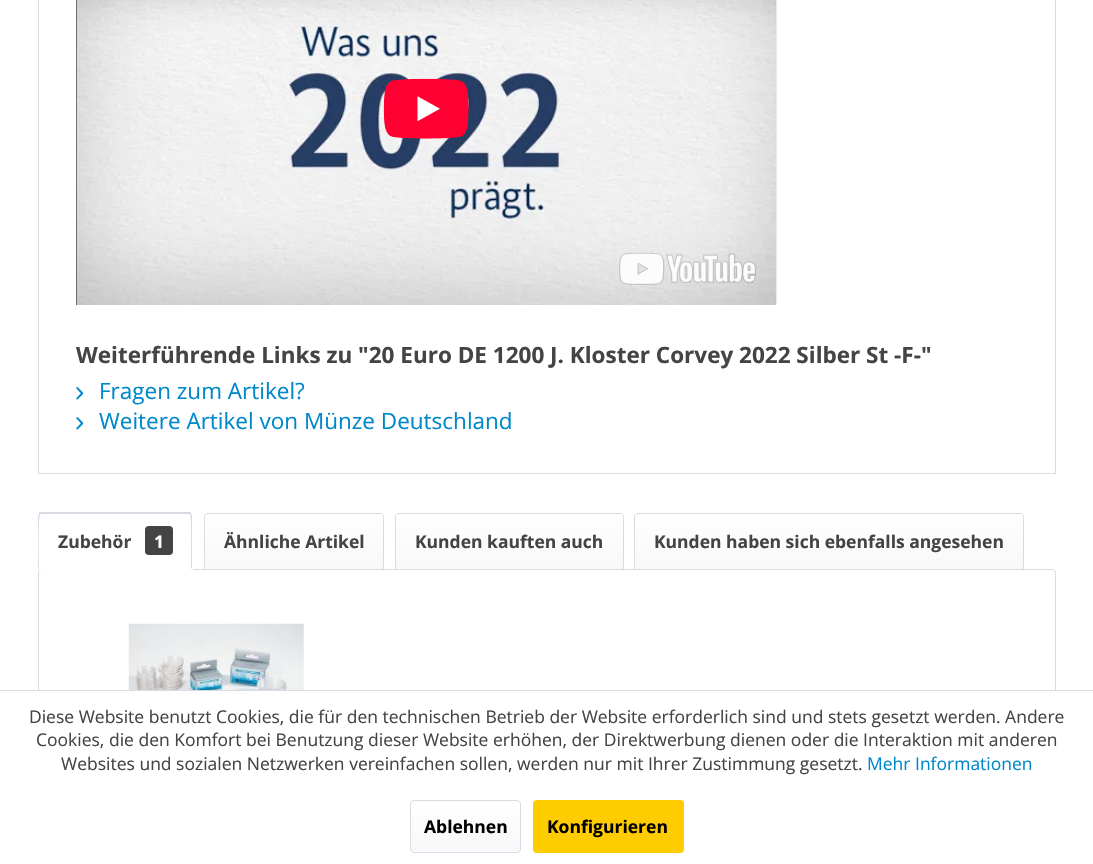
#include "include/core/SkBlurTypes.h"
#include "include/core/SkCanvas.h"
#include "include/core/SkData.h"
#include "include/core/SkFont.h"
#include "include/core/SkFontMgr.h"
#include "include/core/SkImage.h"
#include "include/core/SkMaskFilter.h"
#include "include/core/SkPaint.h"
#include "include/core/SkPathBuilder.h"
#include "include/core/SkTextBlob.h"
#include "include/effects/SkDashPathEffect.h"
#include "include/effects/SkGradientShader.h"
#include "include/utils/SkParsePath.h"

extern sk_sp<SkFontMgr> fontMgr;

void draw(SkCanvas* canvas) {
    SkPaint p;
    p.setAntiAlias(true);
    auto font = [&](const char* family, int weight, float size, bool italic = false) {
        SkFontStyle style(weight, SkFontStyle::kNormal_Width,
            italic ? SkFontStyle::kItalic_Slant : SkFontStyle::kUpright_Slant);
        SkFont result(fontMgr->matchFamilyStyle(family, style), size);
        result.setSubpixel(true);
        return result;
    };
    auto drawPhoto = [&](const char* path, float l, float t, float r, float b) {
        auto image = SkImages::DeferredFromEncodedData(SkData::MakeFromFileName(path));
        canvas->drawImageRect(image, SkRect::MakeLTRB(l, t, r, b), SkSamplingOptions());
    };
    canvas->clear(0xFFFFFFFF);
    p.setStyle(SkPaint::kStroke_Style);
    p.setStrokeWidth(1);
    p.setColor(0xFFDADAE5);
    canvas->drawRect(SkRect::MakeLTRB(38.5f, -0.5f, 1055.5f, 473.5f), p);
    drawPhoto("media/1.png", 76, 0, 777, 305);
    auto font1 = font("Open Sans", 700, 22.5f);
    p.setStyle(SkPaint::kFill_Style);
    p.setColor(0xFF444444);
    canvas->drawString("Weiterführende Links zu \"20 Euro DE 1200 J. Kloster Corvey 2022 Silber St -F-\"", 76, 363, font1, p);
    drawPhoto("media/2.png", 76, 387, 84, 400);
    auto font2 = font("Open Sans", 400, 22.5f);
    p.setColor(0xFF0088CA);
    canvas->drawString("Fragen zum Artikel?", 99, 399, font2, p);
    drawPhoto("media/2.png", 76, 417, 84, 430);
    canvas->drawString("Weitere Artikel von Münze Deutschland", 99, 429, font2, p);
    p.setStyle(SkPaint::kStroke_Style);
    p.setColor(0xFFDADAE5);
    canvas->drawRoundRect(SkRect::MakeLTRB(38.5f, 569.5f, 1055.5f, 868.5f), 3.5f, 3.5f, p);
    p.setStyle(SkPaint::kFill_Style);
    p.setColor(0xFFFFFFFF);
    canvas->drawPath(SkPathBuilder().moveTo(42, 513).lineTo(189, 513).cubicTo(191, 513, 193, 515, 193, 517).lineTo(193, 570).lineTo(38, 570).lineTo(38, 517).cubicTo(38, 515, 40, 513, 42, 513).close().detach(), p);
    p.setColor(0xFFDADAE5);
    canvas->drawPath(SkPathBuilder().moveTo(41, 514).lineTo(40, 515).lineTo(39, 514).lineTo(39, 512).lineTo(191, 512).lineTo(191, 514).lineTo(190, 515).lineTo(189, 514).close().detach(), p);
    canvas->drawPath(SkPathBuilder().moveTo(191, 514).lineTo(192, 516).lineTo(192, 570).lineTo(191, 568).cubicTo(191, 563, 192, 516, 190, 515).close().detach(), p);
    p.setColor(0xFFFFFFFF);
    canvas->drawPath(SkPathBuilder().moveTo(38, 570).lineTo(192, 570).lineTo(191, 568).lineTo(191, 569).lineTo(39, 569).lineTo(39, 568).close().detach(), p);
    p.setColor(0xFFDADAE5);
    canvas->drawPath(SkPathBuilder().moveTo(38, 570).lineTo(38, 516).lineTo(39, 514).lineTo(40, 515).cubicTo(38, 516, 39, 563, 39, 568).close().detach(), p);
    auto font3 = font("Open Sans", 700, 17.5f);
    p.setColor(0xFF444444);
    canvas->drawString("Zubehör", 58, 548, font3, p);
    canvas->drawRoundRect(SkRect::MakeLTRB(145, 526, 173, 555), 4, 4, p);
    p.setColor(0xFFFFFFFF);
    canvas->drawString("1", 154, 548, font3, p);
    {
        const SkColor colors[] = {0xFFFFFFFF, 0xFFF8F8FA};
        const float stops[] = {0, 1};
        const SkPoint ends[] = {{294, 514}, {294, 569}};
        p.setShader(SkGradientShader::MakeLinear(ends, colors, stops, 2, SkTileMode::kClamp));
        p.setAlpha(255);
    }
    canvas->drawPath(SkPathBuilder().moveTo(207.5f, 514).lineTo(380.5f, 514).cubicTo(382, 514, 383, 515, 383, 516.5f).lineTo(383, 569).lineTo(205, 569).lineTo(205, 516.5f).cubicTo(205, 515, 206, 514, 207.5f, 514).close().detach(), p);
    p.setStyle(SkPaint::kStroke_Style);
    p.setShader(nullptr);
    p.setColor(0xFFDADAE5);
    canvas->drawPath(SkPathBuilder().moveTo(208, 513.5f).lineTo(380, 513.5f).cubicTo(382, 513.5f, 383.5f, 515, 383.5f, 517).lineTo(383.5f, 569.5f).lineTo(204.5f, 569.5f).lineTo(204.5f, 517).cubicTo(204.5f, 515, 206, 513.5f, 208, 513.5f).close().detach(), p);
    p.setStyle(SkPaint::kFill_Style);
    p.setColor(0xFF444444);
    canvas->drawString("Ähnliche Artikel", 224, 548, font3, p);
    {
        const SkColor colors[] = {0xFFFFFFFF, 0xFFF8F8FA};
        const float stops[] = {0, 1};
        const SkPoint ends[] = {{509, 514}, {509, 569}};
        p.setShader(SkGradientShader::MakeLinear(ends, colors, stops, 2, SkTileMode::kClamp));
        p.setAlpha(255);
    }
    canvas->drawPath(SkPathBuilder().moveTo(398.5f, 514).lineTo(620.5f, 514).cubicTo(622, 514, 623, 515, 623, 516.5f).lineTo(623, 569).lineTo(396, 569).lineTo(396, 516.5f).cubicTo(396, 515, 397, 514, 398.5f, 514).close().detach(), p);
    p.setStyle(SkPaint::kStroke_Style);
    p.setShader(nullptr);
    p.setColor(0xFFDADAE5);
    canvas->drawPath(SkPathBuilder().moveTo(399, 513.5f).lineTo(620, 513.5f).cubicTo(622, 513.5f, 623.5f, 515, 623.5f, 517).lineTo(623.5f, 569.5f).lineTo(395.5f, 569.5f).lineTo(395.5f, 517).cubicTo(395.5f, 515, 397, 513.5f, 399, 513.5f).close().detach(), p);
    p.setStyle(SkPaint::kFill_Style);
    p.setColor(0xFF444444);
    canvas->drawString("Kunden kauften auch", 415, 548, font3, p);
    {
        const SkColor colors[] = {0xFFFFFFFF, 0xFFF8F8FA};
        const float stops[] = {0, 1};
        const SkPoint ends[] = {{829, 514}, {829, 569}};
        p.setShader(SkGradientShader::MakeLinear(ends, colors, stops, 2, SkTileMode::kClamp));
        p.setAlpha(255);
    }
    canvas->drawPath(SkPathBuilder().moveTo(637.5f, 514).lineTo(1020.5f, 514).cubicTo(1022, 514, 1023, 515, 1023, 516.5f).lineTo(1023, 569).lineTo(635, 569).lineTo(635, 516.5f).cubicTo(635, 515, 636, 514, 637.5f, 514).close().detach(), p);
    p.setStyle(SkPaint::kStroke_Style);
    p.setShader(nullptr);
    p.setColor(0xFFDADAE5);
    canvas->drawPath(SkPathBuilder().moveTo(638, 513.5f).lineTo(1020, 513.5f).cubicTo(1022, 513.5f, 1023.5f, 515, 1023.5f, 517).lineTo(1023.5f, 569.5f).lineTo(634.5f, 569.5f).lineTo(634.5f, 517).cubicTo(634.5f, 515, 636, 513.5f, 638, 513.5f).close().detach(), p);
    p.setStyle(SkPaint::kFill_Style);
    p.setColor(0xFF444444);
    canvas->drawString("Kunden haben sich ebenfalls angesehen", 654, 548, font3, p);
    drawPhoto("media/3.png", 128, 623, 304, 690);
    p.setColor(0xFFFFFFFF);
    canvas->drawRect(SkRect::MakeLTRB(38, 691, 1056, 864), p);
    p.setColor(0xFFDADAE5);
    canvas->drawRect(SkRect::MakeLTRB(0, 690, 1093, 691), p);
    auto font4 = font("Open Sans", 400, 17.5f);
    p.setColor(0xFF444444);
    {
        const struct { const char* s; float x, y; } items[] = {
            {"Diese Website benutzt Cookies, die für den technischen Betrieb der Website erforderlich sind und stets gesetzt werden. Andere", 29, 723},
            {"Cookies, die den Komfort bei Benutzung dieser Website erhöhen, der Direktwerbung dienen oder die Interaktion mit anderen", 36, 746},
            {"Websites und sozialen Netzwerken vereinfachen sollen, werden nur mit Ihrer Zustimmung gesetzt.", 61, 770},
        };
        for (auto [s, x, y] : items) {
            canvas->drawString(s, x, y, font4, p);
        }
    }
    p.setColor(0xFF0088CA);
    canvas->drawString("Mehr Informationen", 867, 770, font4, p);
    {
        const SkColor colors[] = {0xFFFFFFFF, 0xFFF8F8FA};
        const float stops[] = {0, 1};
        const SkPoint ends[] = {{466, 801}, {466, 851}};
        p.setShader(SkGradientShader::MakeLinear(ends, colors, stops, 2, SkTileMode::kClamp));
        p.setAlpha(255);
    }
    canvas->drawRoundRect(SkRect::MakeLTRB(411, 801, 520, 851), 2.5f, 2.5f, p);
    p.setStyle(SkPaint::kStroke_Style);
    p.setShader(nullptr);
    p.setColor(0xFFDADAE5);
    canvas->drawRoundRect(SkRect::MakeLTRB(410.5f, 800.5f, 520.5f, 852.5f), 3.5f, 3.5f, p);
    p.setStyle(SkPaint::kFill_Style);
    p.setColor(0xFF000000);
    canvas->drawString("Ablehnen", 424, 833, font3, p);
    p.setColor(0xFFFECC00);
    canvas->drawRoundRect(SkRect::MakeLTRB(533, 800, 684, 853), 4, 4, p);
    p.setColor(0xFF000000);
    canvas->drawString("Konfigurieren", 547, 833, font3, p);
}
